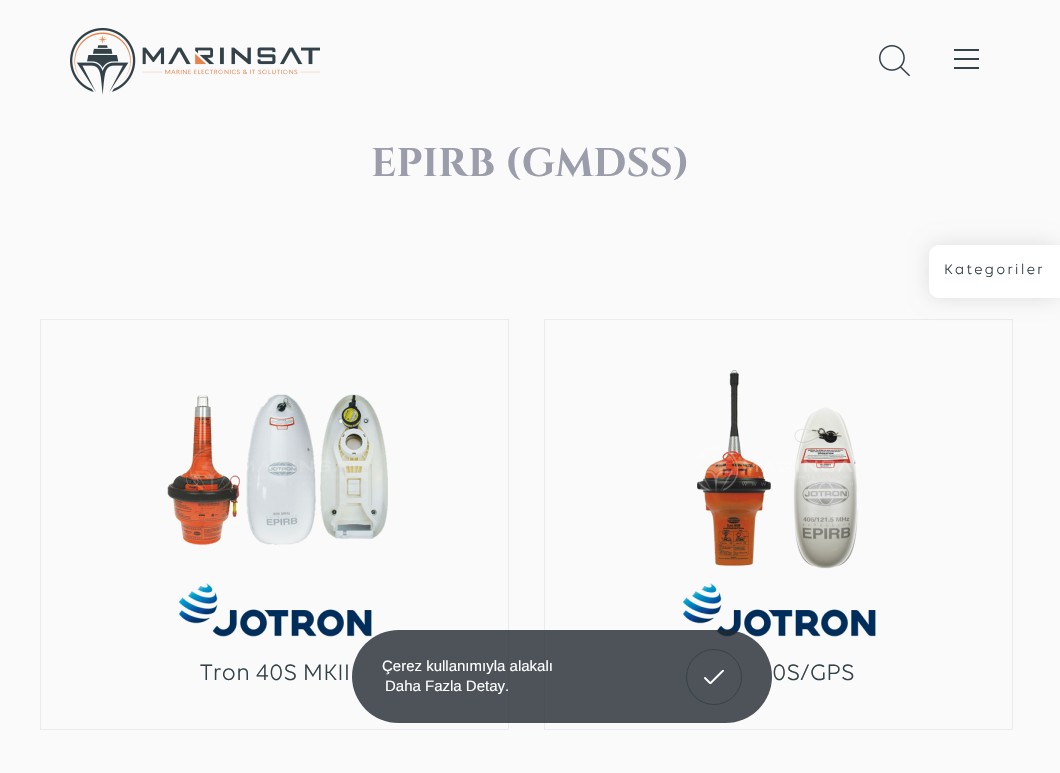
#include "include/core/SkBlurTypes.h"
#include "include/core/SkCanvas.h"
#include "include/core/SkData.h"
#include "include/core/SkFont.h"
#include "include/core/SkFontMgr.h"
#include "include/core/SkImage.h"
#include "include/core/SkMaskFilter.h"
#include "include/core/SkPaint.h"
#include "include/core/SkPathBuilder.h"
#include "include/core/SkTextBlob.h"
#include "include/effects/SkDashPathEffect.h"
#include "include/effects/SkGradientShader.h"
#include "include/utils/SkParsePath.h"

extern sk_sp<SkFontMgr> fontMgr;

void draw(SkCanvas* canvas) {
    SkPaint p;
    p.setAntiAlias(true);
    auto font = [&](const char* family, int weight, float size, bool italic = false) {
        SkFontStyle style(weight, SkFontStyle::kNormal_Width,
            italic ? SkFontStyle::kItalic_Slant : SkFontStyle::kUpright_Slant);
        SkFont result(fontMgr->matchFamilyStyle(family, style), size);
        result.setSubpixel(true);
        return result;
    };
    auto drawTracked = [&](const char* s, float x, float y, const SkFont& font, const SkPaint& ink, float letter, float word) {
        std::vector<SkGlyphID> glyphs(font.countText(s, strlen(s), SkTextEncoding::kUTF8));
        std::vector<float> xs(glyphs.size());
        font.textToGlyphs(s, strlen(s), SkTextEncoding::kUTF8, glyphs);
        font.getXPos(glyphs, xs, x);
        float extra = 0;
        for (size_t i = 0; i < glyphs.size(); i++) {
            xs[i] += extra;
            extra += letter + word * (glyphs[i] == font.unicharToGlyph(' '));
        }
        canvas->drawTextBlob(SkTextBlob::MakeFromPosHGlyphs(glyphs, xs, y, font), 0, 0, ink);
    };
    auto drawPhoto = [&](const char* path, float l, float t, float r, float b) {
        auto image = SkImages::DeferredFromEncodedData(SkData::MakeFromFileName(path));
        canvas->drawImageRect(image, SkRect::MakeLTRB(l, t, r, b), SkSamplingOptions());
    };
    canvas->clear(0xFFFAFAFA);
    drawPhoto("media/1.png", 70, 28, 320, 95);
    drawPhoto("media/2.png", 879, 45, 910, 77);
    {
        const struct { float l, t, r, b; SkColor color; } items[] = {
            {954, 49, 979, 51, 0xFF334148},
            {954, 58, 979, 60, 0xFF334148},
            {954, 67, 979, 69, 0xFF334148},
        };
        for (auto [l, t, r, b, color] : items) {
            p.setColor(color);
            canvas->drawRect(SkRect::MakeLTRB(l, t, r, b), p);
        }
    }
    auto font1 = font("Cinzel", 700, 40);
    p.setColor(0xFF9B9DAB);
    canvas->drawString("EPIRB (GMDSS)", 371, 176, font1, p);
    p.setStyle(SkPaint::kStroke_Style);
    p.setStrokeWidth(1);
    p.setColor(0xFFEAEBED);
    canvas->drawRect(SkRect::MakeLTRB(544.5f, 319.5f, 1012.5f, 729.5f), p);
    p.setStyle(SkPaint::kFill_Style);
    p.setColor(0x1C000000);
    p.setMaskFilter(SkMaskFilter::MakeBlur(kNormal_SkBlurStyle, 10));
    canvas->drawRoundRect(SkRect::MakeLTRB(929, 245, 1060, 298), 10, 10, p);
    p.setMaskFilter(nullptr);
    p.setColor(0xFFFFFFFF);
    canvas->drawPath(SkPathBuilder().moveTo(939, 245).lineTo(1060, 245).lineTo(1060, 298).lineTo(939, 298).cubicTo(933.5f, 298, 929, 293.5f, 929, 288).lineTo(929, 255).cubicTo(929, 249.5f, 933.5f, 245, 939, 245).close().detach(), p);
    auto font2 = font("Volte", 400, 15);
    p.setColor(0xFF334148);
    drawTracked("Kategoriler", 944, 274, font2, p, 2, 0);
    p.setStyle(SkPaint::kStroke_Style);
    p.setColor(0xFFEAEBED);
    canvas->drawRect(SkRect::MakeLTRB(40.5f, 319.5f, 508.5f, 729.5f), p);
    drawPhoto("media/3.png", 167, 394, 388, 545);
    drawPhoto("media/4.png", 179, 583, 372, 637);
    auto font3 = font("Volte", 400, 24);
    p.setStyle(SkPaint::kFill_Style);
    p.setColor(0xFF334148);
    canvas->drawString("Tron 40S MKII", 200, 680, font3, p);
    drawPhoto("media/5.png", 697, 370, 858, 569);
    drawPhoto("media/4.png", 683, 583, 876, 637);
    canvas->drawString("0S/GPS", 772, 680, font3, p);
    p.setColor(0xCC222930);
    canvas->drawRoundRect(SkRect::MakeLTRB(352, 630, 772, 723), 46.5f, 46.5f, p);
    auto font4 = font("Liberation Sans", 400, 15);
    p.setColor(0xFFFFFFFF);
    canvas->drawString("Çerez kullanımıyla alakalı", 382, 671, font4, p);
    canvas->drawString("Daha Fazla Detay.", 385, 691, font4, p);
    p.setStyle(SkPaint::kStroke_Style);
    p.setColor(0xFF334148);
    canvas->drawCircle(714, 677, 27.5f, p);
    drawPhoto("media/6.png", 704, 670, 724, 684);
}
